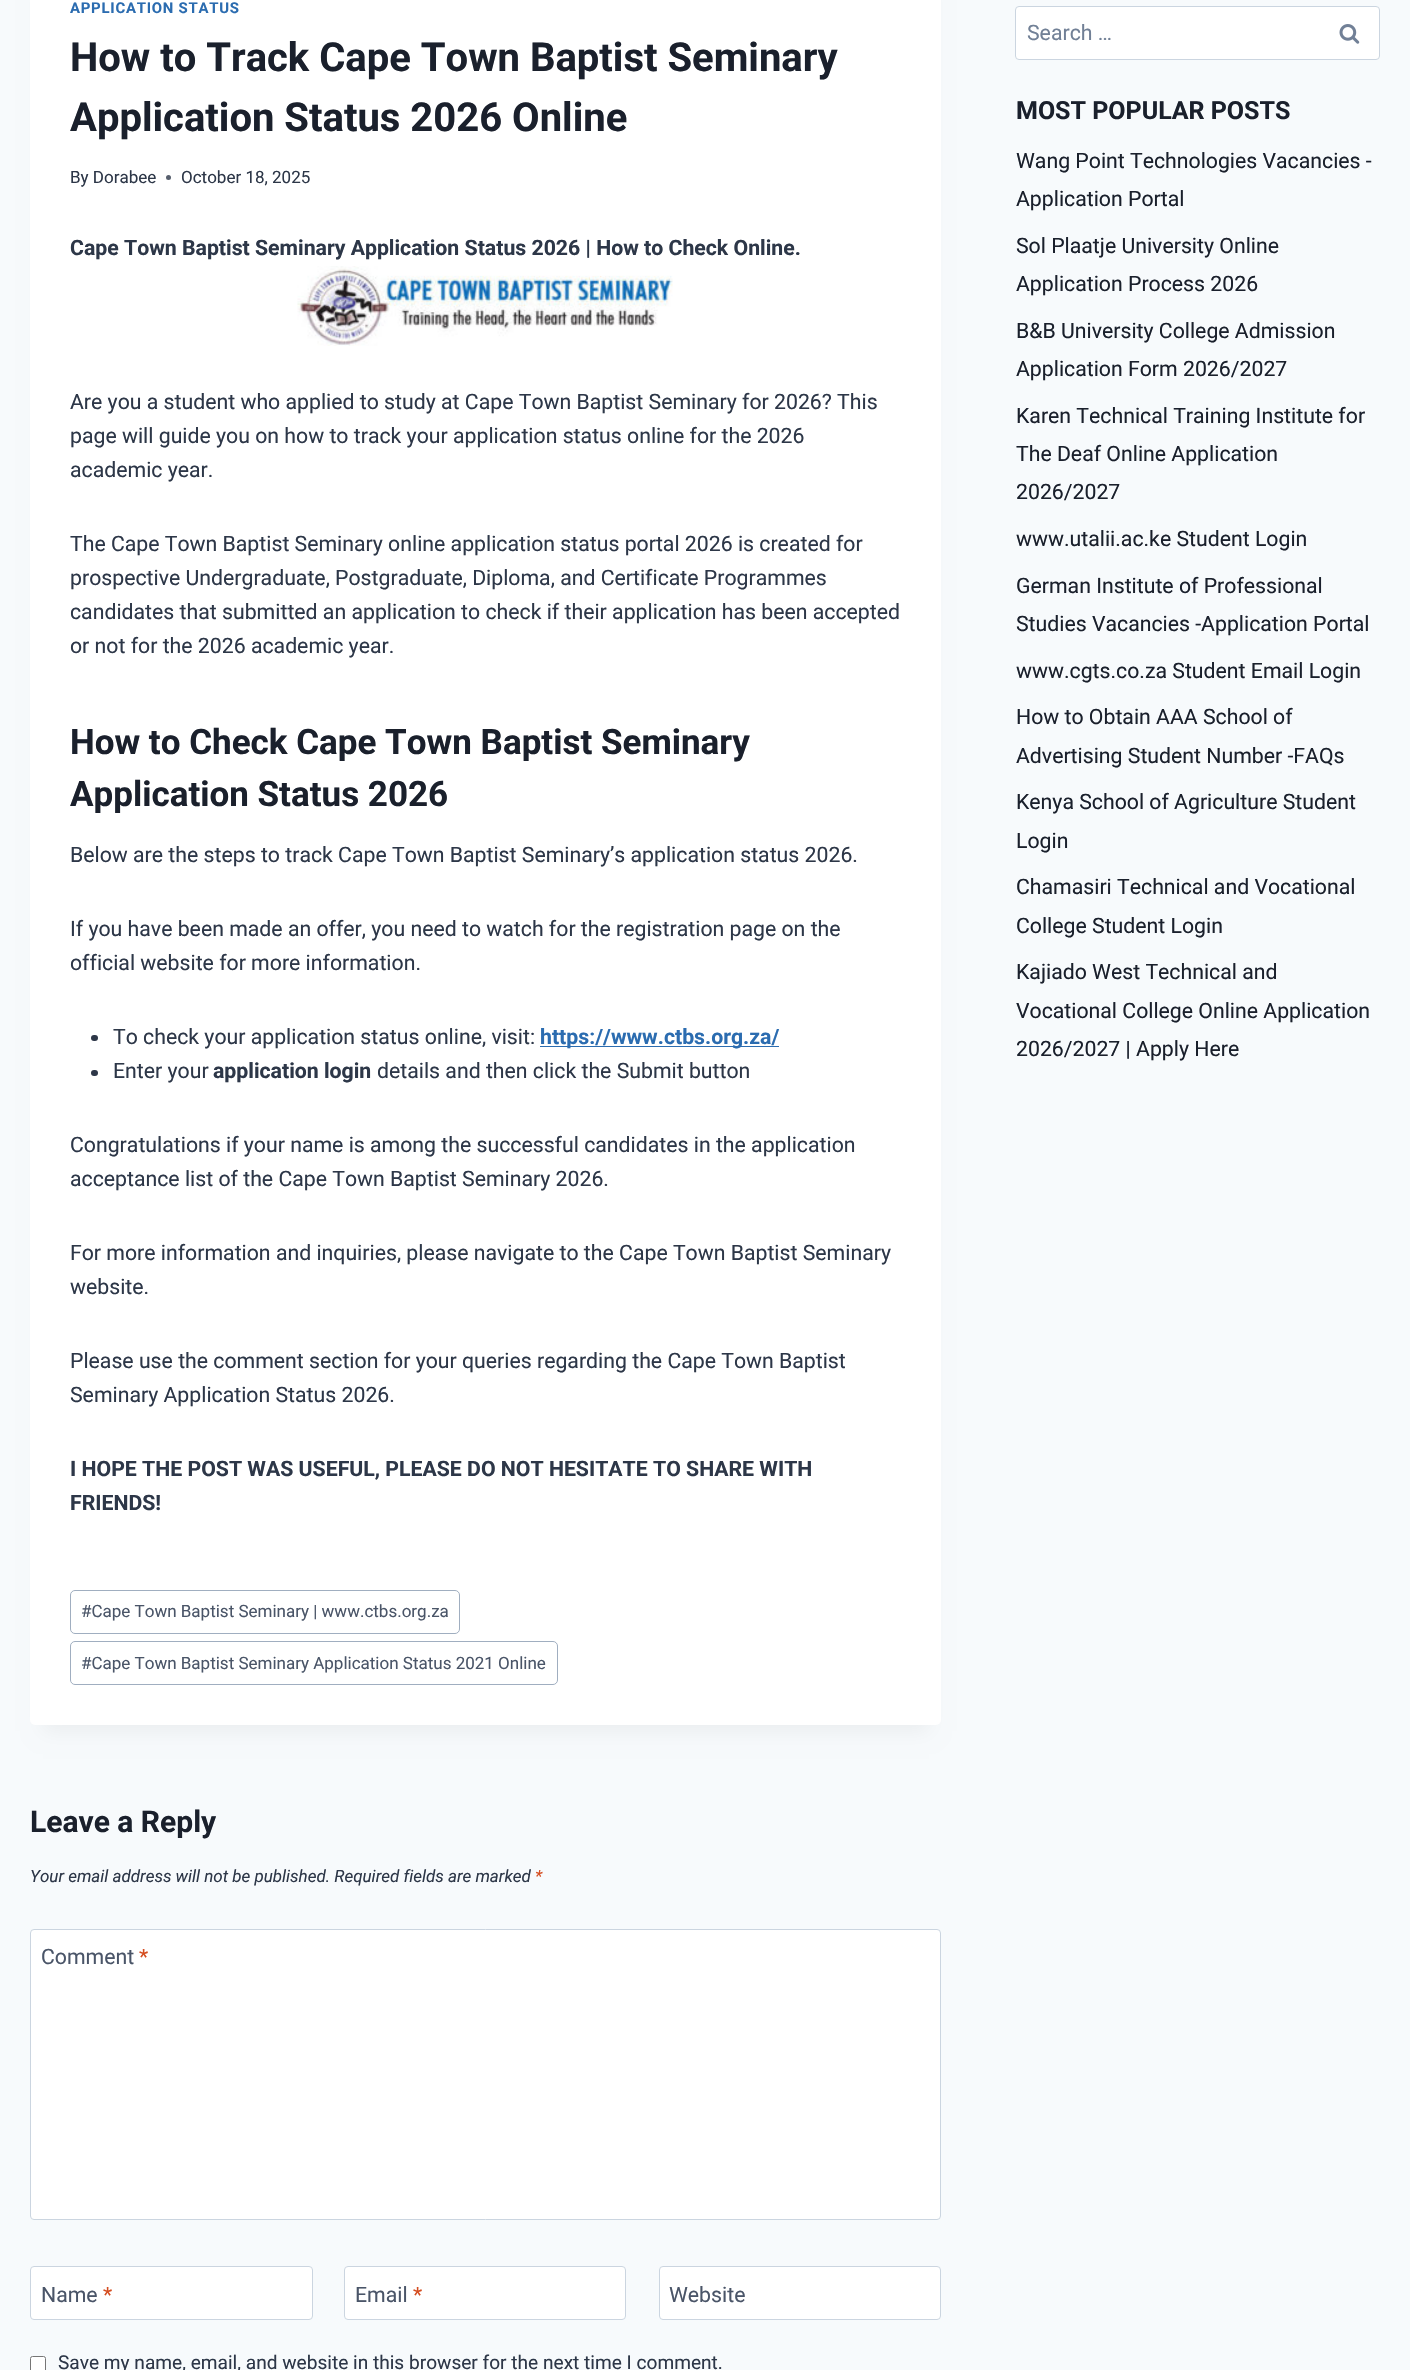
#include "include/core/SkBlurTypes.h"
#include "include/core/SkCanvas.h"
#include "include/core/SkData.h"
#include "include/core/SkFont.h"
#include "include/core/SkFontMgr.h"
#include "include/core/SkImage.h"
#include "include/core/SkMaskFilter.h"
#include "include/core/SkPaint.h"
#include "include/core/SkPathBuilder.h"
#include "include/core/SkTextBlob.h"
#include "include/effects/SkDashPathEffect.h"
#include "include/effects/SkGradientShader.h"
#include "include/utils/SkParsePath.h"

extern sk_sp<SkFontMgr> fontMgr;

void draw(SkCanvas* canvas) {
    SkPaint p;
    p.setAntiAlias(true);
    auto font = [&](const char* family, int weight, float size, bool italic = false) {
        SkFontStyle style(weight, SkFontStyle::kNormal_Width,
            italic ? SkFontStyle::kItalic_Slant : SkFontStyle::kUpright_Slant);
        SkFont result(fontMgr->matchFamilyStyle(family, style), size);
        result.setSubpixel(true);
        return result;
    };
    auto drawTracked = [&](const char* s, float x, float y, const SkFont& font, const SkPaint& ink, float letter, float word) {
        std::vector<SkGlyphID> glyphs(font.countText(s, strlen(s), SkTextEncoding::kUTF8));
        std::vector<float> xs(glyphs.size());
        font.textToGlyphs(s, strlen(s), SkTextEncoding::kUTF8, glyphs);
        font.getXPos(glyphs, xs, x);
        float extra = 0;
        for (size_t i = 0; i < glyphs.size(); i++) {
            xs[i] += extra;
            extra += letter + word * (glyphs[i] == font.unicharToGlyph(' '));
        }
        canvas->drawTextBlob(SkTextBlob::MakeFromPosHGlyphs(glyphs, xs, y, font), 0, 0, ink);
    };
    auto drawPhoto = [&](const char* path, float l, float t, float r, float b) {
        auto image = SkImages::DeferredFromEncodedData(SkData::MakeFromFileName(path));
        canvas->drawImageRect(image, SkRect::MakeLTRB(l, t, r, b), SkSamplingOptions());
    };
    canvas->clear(0xFFF7FAFC);
    p.setColor(0x0D000000);
    p.setMaskFilter(SkMaskFilter::MakeBlur(kNormal_SkBlurStyle, 9.5f));
    canvas->drawRect(SkRect::MakeLTRB(43, -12, 929, 1731), p);
    p.setMaskFilter(nullptr);
    p.setColor(0xFFFFFFFF);
    canvas->drawRoundRect(SkRect::MakeLTRB(30, -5, 941, 1725), 5, 5, p);
    auto font1 = font("Roboto", 700, 14.9f);
    p.setColor(0xFF2B6CB0);
    drawTracked("APPLICATION STATUS", 70, 13, font1, p, 0.75f, 0);
    auto font2 = font("Roboto", 700, 40);
    p.setColor(0xFF1A202C);
    canvas->drawString("How to Track Cape Town Baptist Seminary", 70, 71, font2, p);
    canvas->drawString("Application Status 2026 Online", 70, 131, font2, p);
    auto font3 = font("Roboto", 400, 17);
    p.setColor(0xFF2D3748);
    canvas->drawString("By Dorabee", 70, 183, font3, p);
    p.setColor(0xFF575F6D);
    canvas->drawCircle(168.5f, 177.5f, 2.5f, p);
    p.setColor(0xFF2D3748);
    canvas->drawString("October 18, 2025", 181, 183, font3, p);
    auto font4 = font("Roboto", 700, 21.25f);
    canvas->drawString("Cape Town Baptist Seminary Application Status 2026 | How to Check Online.", 70, 255, font4, p);
    drawPhoto("media/1.png", 297, 266, 673, 346);
    auto font5 = font("Roboto", 400, 21.25f);
    {
        const struct { const char* s; float x, y; } items[] = {
            {"Are you a student who applied to study at Cape Town Baptist Seminary for 2026? This", 70, 409},
            {"page will guide you on how to track your application status online for the 2026", 70, 443},
            {"academic year.", 70, 477},
            {"The Cape Town Baptist Seminary online application status portal 2026 is created for", 70, 551},
            {"prospective Undergraduate, Postgraduate, Diploma, and Certificate Programmes", 70, 585},
            {"candidates that submitted an application to check if their application has been accepted", 70, 619},
            {"or not for the 2026 academic year.", 70, 653},
        };
        for (auto [s, x, y] : items) {
            canvas->drawString(s, x, y, font5, p);
        }
    }
    auto font6 = font("Roboto", 700, 35);
    p.setColor(0xFF1A202C);
    canvas->drawString("How to Check Cape Town Baptist Seminary", 70, 754, font6, p);
    canvas->drawString("Application Status 2026", 70, 806, font6, p);
    p.setColor(0xFF2D3748);
    {
        const struct { const char* s; float x, y; } items[] = {
            {"Below are the steps to track Cape Town Baptist Seminary’s application status 2026.", 70, 862},
            {"If you have been made an offer, you need to watch for the registration page on the", 70, 936},
            {"official website for more information.", 70, 970},
        };
        for (auto [s, x, y] : items) {
            canvas->drawString(s, x, y, font5, p);
        }
    }
    canvas->drawRoundRect(SkRect::MakeLTRB(91, 1035, 98, 1041), 3, 3, p);
    canvas->drawString("To check your application status online, visit:", 113, 1044, font5, p);
    p.setColor(0xFF2B6CB0);
    canvas->drawRect(SkRect::MakeLTRB(540, 1046, 779, 1047), p);
    canvas->drawString("https://www.ctbs.org.za/", 540, 1044, font4, p);
    p.setColor(0xFF2D3748);
    canvas->drawRoundRect(SkRect::MakeLTRB(91, 1070, 98, 1076), 3, 3, p);
    canvas->drawString("Enter your", 113, 1078, font5, p);
    canvas->drawString("application login", 213, 1078, font4, p);
    {
        const struct { const char* s; float x, y; } items[] = {
            {"details and then click the Submit button", 377, 1078},
            {"Congratulations if your name is among the successful candidates in the application", 70, 1152},
            {"acceptance list of the Cape Town Baptist Seminary 2026.", 70, 1186},
            {"For more information and inquiries, please navigate to the Cape Town Baptist Seminary", 70, 1260},
            {"website.", 70, 1294},
            {"Please use the comment section for your queries regarding the Cape Town Baptist", 70, 1368},
            {"Seminary Application Status 2026.", 70, 1402},
        };
        for (auto [s, x, y] : items) {
            canvas->drawString(s, x, y, font5, p);
        }
    }
    canvas->drawString("I HOPE THE POST WAS USEFUL, PLEASE DO NOT HESITATE TO SHARE WITH", 70, 1476, font4, p);
    canvas->drawString("FRIENDS!", 70, 1510, font4, p);
    p.setStyle(SkPaint::kStroke_Style);
    p.setStrokeWidth(1);
    p.setColor(0xFFA0AEC0);
    canvas->drawRoundRect(SkRect::MakeLTRB(70.5f, 1590.5f, 459.5f, 1633.5f), 4.5f, 4.5f, p);
    p.setStyle(SkPaint::kFill_Style);
    p.setColor(0xFF4A5568);
    canvas->drawString("#Cape Town Baptist Seminary | www.ctbs.org.za", 81, 1617, font3, p);
    p.setStyle(SkPaint::kStroke_Style);
    p.setColor(0xFFA0AEC0);
    canvas->drawRoundRect(SkRect::MakeLTRB(70.5f, 1641.5f, 557.5f, 1684.5f), 4.5f, 4.5f, p);
    p.setStyle(SkPaint::kFill_Style);
    p.setColor(0xFF4A5568);
    canvas->drawString("#Cape Town Baptist Seminary Application Status 2021 Online", 81, 1669, font3, p);
    auto font7 = font("Roboto", 700, 30);
    p.setColor(0xFF1A202C);
    canvas->drawString("Leave a Reply", 30, 1832, font7, p);
    auto font8 = font("Roboto", 400, 17, true);
    p.setColor(0xFF2D3748);
    canvas->drawString("Your email address will not be published. Required fields are marked", 30, 1882, font8, p);
    p.setColor(0xFFD54E21);
    canvas->drawString("*", 535, 1882, font8, p);
    p.setColor(0xFFFFFFFF);
    canvas->drawRoundRect(SkRect::MakeLTRB(30.5f, 1929.5f, 940.5f, 2219.5f), 3.5f, 3.5f, p);
    p.setStyle(SkPaint::kStroke_Style);
    p.setColor(0xFFCBD5E0);
    canvas->drawRoundRect(SkRect::MakeLTRB(30.5f, 1929.5f, 940.5f, 2219.5f), 3.5f, 3.5f, p);
    p.setStyle(SkPaint::kFill_Style);
    p.setColor(0xFF4A5568);
    canvas->drawString("Comment", 41, 1964, font5, p);
    p.setColor(0xFFD54E21);
    canvas->drawString("*", 139, 1964, font5, p);
    p.setColor(0xFFFFFFFF);
    canvas->drawRoundRect(SkRect::MakeLTRB(30.5f, 2266.5f, 312.5f, 2319.5f), 3.5f, 3.5f, p);
    p.setStyle(SkPaint::kStroke_Style);
    p.setColor(0xFFCBD5E0);
    canvas->drawRoundRect(SkRect::MakeLTRB(30.5f, 2266.5f, 312.5f, 2319.5f), 3.5f, 3.5f, p);
    p.setStyle(SkPaint::kFill_Style);
    p.setColor(0xFF4A5568);
    canvas->drawString("Name", 41, 2302, font5, p);
    p.setColor(0xFFD54E21);
    canvas->drawString("*", 103, 2302, font5, p);
    p.setColor(0xFFFFFFFF);
    canvas->drawRoundRect(SkRect::MakeLTRB(344.5f, 2266.5f, 625.5f, 2319.5f), 3.5f, 3.5f, p);
    p.setStyle(SkPaint::kStroke_Style);
    p.setColor(0xFFCBD5E0);
    canvas->drawRoundRect(SkRect::MakeLTRB(344.5f, 2266.5f, 625.5f, 2319.5f), 3.5f, 3.5f, p);
    p.setStyle(SkPaint::kFill_Style);
    p.setColor(0xFF4A5568);
    canvas->drawString("Email", 355, 2302, font5, p);
    p.setColor(0xFFD54E21);
    canvas->drawString("*", 413, 2302, font5, p);
    p.setColor(0xFFFFFFFF);
    canvas->drawRoundRect(SkRect::MakeLTRB(659.5f, 2266.5f, 940.5f, 2319.5f), 3.5f, 3.5f, p);
    p.setStyle(SkPaint::kStroke_Style);
    p.setColor(0xFFCBD5E0);
    canvas->drawRoundRect(SkRect::MakeLTRB(659.5f, 2266.5f, 940.5f, 2319.5f), 3.5f, 3.5f, p);
    p.setStyle(SkPaint::kFill_Style);
    p.setColor(0xFF4A5568);
    canvas->drawString("Website", 669, 2302, font5, p);
    p.setColor(0xFFFFFFFF);
    canvas->drawRoundRect(SkRect::MakeLTRB(30.5f, 2356.5f, 45.5f, 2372.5f), 2, 2, p);
    p.setStyle(SkPaint::kStroke_Style);
    p.setColor(0xFF767676);
    canvas->drawRoundRect(SkRect::MakeLTRB(30.5f, 2356.5f, 45.5f, 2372.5f), 2, 2, p);
    auto font9 = font("Roboto", 400, 19.1f);
    p.setStyle(SkPaint::kFill_Style);
    p.setColor(0xFF2D3748);
    canvas->drawString("Save my name, email, and website in this browser for the next time I comment.", 58, 2369, font9, p);
    p.setColor(0xFFFFFFFF);
    canvas->drawRoundRect(SkRect::MakeLTRB(1015.5f, 6.5f, 1379.5f, 59.5f), 3.5f, 3.5f, p);
    p.setStyle(SkPaint::kStroke_Style);
    p.setColor(0xFFCBD5E0);
    canvas->drawRoundRect(SkRect::MakeLTRB(1015.5f, 6.5f, 1379.5f, 59.5f), 3.5f, 3.5f, p);
    p.setStyle(SkPaint::kFill_Style);
    p.setColor(0xFF718096);
    canvas->drawString("Search …", 1027, 40, font5, p);
    drawPhoto("media/2.png", 1339, 24, 1360, 44);
    auto font10 = font("Roboto", 700, 25);
    p.setColor(0xFF1A202C);
    canvas->drawString("MOST POPULAR POSTS", 1016, 119, font10, p);
    {
        const struct { const char* s; float x, y; } items[] = {
            {"Wang Point Technologies Vacancies -", 1016, 168},
            {"Application Portal", 1016, 206},
            {"Sol Plaatje University Online", 1016, 253},
            {"Application Process 2026", 1016, 291},
            {"B&B University College Admission", 1016, 338},
            {"Application Form 2026/2027", 1016, 376},
            {"Karen Technical Training Institute for", 1016, 423},
            {"The Deaf Online Application", 1016, 461},
            {"2026/2027", 1016, 499},
            {"www.utalii.ac.ke Student Login", 1016, 546},
            {"German Institute of Professional", 1016, 593},
            {"Studies Vacancies -Application Portal", 1016, 631},
            {"www.cgts.co.za Student Email Login", 1016, 678},
            {"How to Obtain AAA School of", 1016, 724},
            {"Advertising Student Number -FAQs", 1016, 763},
            {"Kenya School of Agriculture Student", 1016, 809},
            {"Login", 1016, 848},
            {"Chamasiri Technical and Vocational", 1016, 894},
            {"College Student Login", 1016, 933},
            {"Kajiado West Technical and", 1016, 979},
            {"Vocational College Online Application", 1016, 1018},
            {"2026/2027 | Apply Here", 1016, 1056},
        };
        for (auto [s, x, y] : items) {
            canvas->drawString(s, x, y, font5, p);
        }
    }
}
